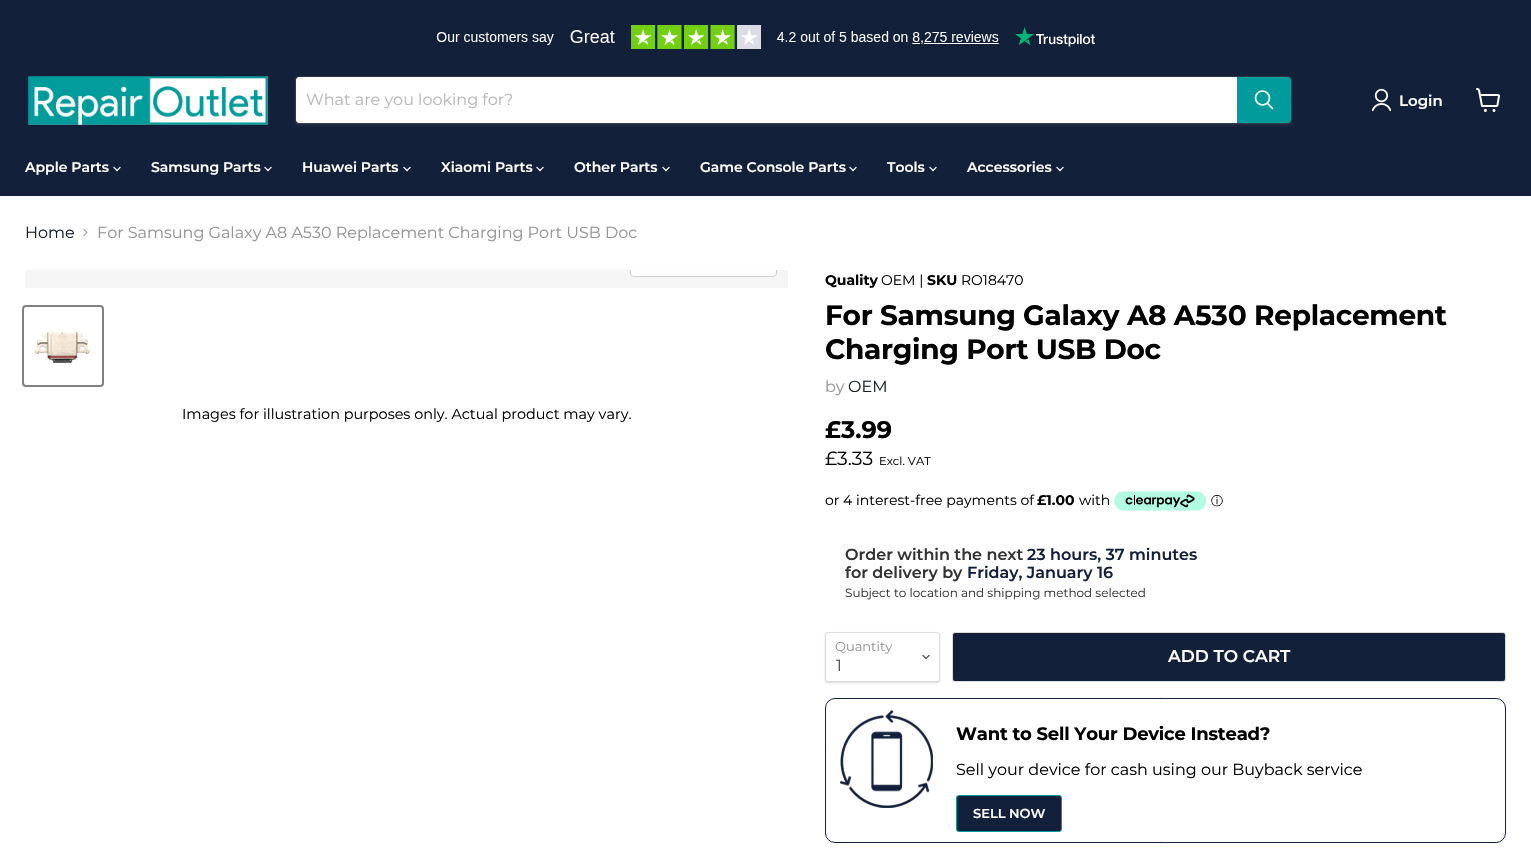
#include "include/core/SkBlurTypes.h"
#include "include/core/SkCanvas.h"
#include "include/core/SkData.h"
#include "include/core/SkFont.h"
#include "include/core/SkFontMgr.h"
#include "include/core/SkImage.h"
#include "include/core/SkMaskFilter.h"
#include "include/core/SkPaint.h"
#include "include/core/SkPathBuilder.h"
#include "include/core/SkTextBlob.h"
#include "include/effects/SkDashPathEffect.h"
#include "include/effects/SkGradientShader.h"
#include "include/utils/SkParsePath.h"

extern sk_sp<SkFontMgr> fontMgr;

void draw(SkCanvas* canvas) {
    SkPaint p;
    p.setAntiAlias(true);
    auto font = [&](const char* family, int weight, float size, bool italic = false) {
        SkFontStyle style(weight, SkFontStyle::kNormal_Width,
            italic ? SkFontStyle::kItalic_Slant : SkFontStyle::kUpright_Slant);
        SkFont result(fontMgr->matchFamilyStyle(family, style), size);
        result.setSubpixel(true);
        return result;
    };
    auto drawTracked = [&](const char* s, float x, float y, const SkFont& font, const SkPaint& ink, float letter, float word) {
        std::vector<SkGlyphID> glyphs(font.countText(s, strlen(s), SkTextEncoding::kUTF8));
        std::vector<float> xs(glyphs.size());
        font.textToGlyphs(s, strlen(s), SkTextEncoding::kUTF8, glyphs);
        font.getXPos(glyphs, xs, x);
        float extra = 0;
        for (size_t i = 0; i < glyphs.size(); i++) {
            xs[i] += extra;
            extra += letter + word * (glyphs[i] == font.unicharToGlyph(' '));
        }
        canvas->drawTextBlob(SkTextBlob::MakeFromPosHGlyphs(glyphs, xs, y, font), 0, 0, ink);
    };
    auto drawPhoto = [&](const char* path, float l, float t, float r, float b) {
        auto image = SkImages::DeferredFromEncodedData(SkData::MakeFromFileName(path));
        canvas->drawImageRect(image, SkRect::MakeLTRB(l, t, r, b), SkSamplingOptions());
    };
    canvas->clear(0xFFFFFFFF);
    p.setColor(0xFF13203A);
    canvas->drawRect(SkRect::MakeLTRB(0, 0, 1531, 196), p);
    drawPhoto("media/1.png", 436, 25, 1095, 49);
    drawPhoto("media/2.png", 28, 76, 268, 125);
    p.setColor(0x1C808080);
    p.setMaskFilter(SkMaskFilter::MakeBlur(kNormal_SkBlurStyle, 1.5f));
    canvas->drawRoundRect(SkRect::MakeLTRB(295, 78, 1292, 126), 4, 4, p);
    p.setMaskFilter(nullptr);
    p.setStyle(SkPaint::kStroke_Style);
    p.setStrokeWidth(1);
    p.setColor(0x33808080);
    canvas->drawRoundRect(SkRect::MakeLTRB(295.5f, 76.5f, 1291.5f, 123.5f), 3.5f, 3.5f, p);
    p.setStyle(SkPaint::kFill_Style);
    p.setColor(0xFFFFFFFF);
    canvas->drawPath(SkPathBuilder().moveTo(299, 77).lineTo(1237, 77).lineTo(1237, 123).lineTo(299, 123).cubicTo(297.5f, 123, 296, 121.5f, 296, 120).lineTo(296, 80).cubicTo(296, 78.5f, 297.5f, 77, 299, 77).close().detach(), p);
    auto font1 = font("Montserrat", 400, 16);
    p.setColor(0xFFB8B8B8);
    canvas->drawString("What are you looking for?", 306, 105, font1, p);
    p.setColor(0xFF009C9C);
    canvas->drawPath(SkPathBuilder().moveTo(1237.5f, 77.5f).lineTo(1288, 77.5f).cubicTo(1289.5f, 77.5f, 1290.5f, 78.5f, 1290.5f, 80).lineTo(1290.5f, 120).cubicTo(1290.5f, 121.5f, 1289.5f, 122.5f, 1288, 122.5f).lineTo(1237.5f, 122.5f).close().detach(), p);
    p.setStyle(SkPaint::kStroke_Style);
    canvas->drawPath(SkPathBuilder().moveTo(1237.5f, 77.5f).lineTo(1288, 77.5f).cubicTo(1289.5f, 77.5f, 1290.5f, 78.5f, 1290.5f, 80).lineTo(1290.5f, 120).cubicTo(1290.5f, 121.5f, 1289.5f, 122.5f, 1288, 122.5f).lineTo(1237.5f, 122.5f).close().detach(), p);
    p.setStrokeWidth(1.7f);
    p.setStrokeCap(SkPaint::kRound_Cap);
    p.setColor(0xFFFFFFFF);
    canvas->drawPath(SkPathBuilder().moveTo(1272.5f, 108.5f).lineTo(1267.5f, 103.5f).detach(), p);
    p.setStrokeCap(SkPaint::kButt_Cap);
    canvas->drawCircle(1262.5f, 98, 7, p);
    drawPhoto("media/3.png", 1371, 88, 1391, 112);
    auto font2 = font("Montserrat", 600, 15);
    p.setStyle(SkPaint::kFill_Style);
    canvas->drawString("Login", 1399, 106, font2, p);
    drawPhoto("media/4.png", 1476, 88, 1500, 112);
    auto font3 = font("Montserrat", 600, 14);
    canvas->drawString("Apple Parts", 25, 172, font3, p);
    drawPhoto("media/5.png", 113, 166, 121, 172);
    canvas->drawString("Samsung Parts", 151, 172, font3, p);
    drawPhoto("media/5.png", 264, 166, 272, 172);
    canvas->drawString("Huawei Parts", 302, 172, font3, p);
    drawPhoto("media/5.png", 403, 166, 411, 172);
    canvas->drawString("Xiaomi Parts", 441, 172, font3, p);
    drawPhoto("media/5.png", 536, 166, 544, 172);
    canvas->drawString("Other Parts", 574, 172, font3, p);
    drawPhoto("media/5.png", 662, 166, 670, 172);
    canvas->drawString("Game Console Parts", 700, 172, font3, p);
    drawPhoto("media/5.png", 849, 166, 857, 172);
    canvas->drawString("Tools", 887, 172, font3, p);
    drawPhoto("media/5.png", 929, 166, 937, 172);
    canvas->drawString("Accessories", 967, 172, font3, p);
    drawPhoto("media/5.png", 1056, 166, 1064, 172);
    p.setColor(0xFF171F2B);
    canvas->drawString("Home", 25, 238, font1, p);
    drawPhoto("media/6.png", 83, 229, 88, 236);
    p.setColor(0xFF949494);
    canvas->drawString("For Samsung Galaxy A8 A530 Replacement Charging Port USB Doc", 97, 238, font1, p);
    p.setColor(0xFFF5F5F5);
    canvas->drawRect(SkRect::MakeLTRB(25, 270, 788, 288), p);
    canvas->save();
    canvas->clipRect(SkRect::MakeLTRB(25, 270, 788, 288));
    p.setStyle(SkPaint::kStroke_Style);
    p.setStrokeWidth(1);
    p.setColor(0xFFD0D0D0);
    canvas->drawRoundRect(SkRect::MakeLTRB(630.5f, 247.5f, 776.5f, 276.5f), 3.5f, 3.5f, p);
    canvas->restore();
    p.setStyle(SkPaint::kFill_Style);
    p.setColor(0xE6FFFFFF);
    canvas->drawPath(SkPathBuilder().moveTo(631, 270).lineTo(776, 270).lineTo(776, 273).cubicTo(776, 274.5f, 774.5f, 276, 773, 276).lineTo(634, 276).cubicTo(632.5f, 276, 631, 274.5f, 631, 273).close().detach(), p);
    p.setStyle(SkPaint::kStroke_Style);
    p.setStrokeWidth(2);
    p.setColor(0xFF818181);
    canvas->drawRoundRect(SkRect::MakeLTRB(23, 306, 103, 386), 3, 3, p);
    drawPhoto("media/7.png", 34, 331, 90, 364);
    auto font4 = font("Montserrat", 400, 14.4f);
    p.setStyle(SkPaint::kFill_Style);
    p.setColor(0xFF000000);
    canvas->drawString("Images for illustration purposes only. Actual product may vary.", 182, 419, font4, p);
    auto font5 = font("Montserrat", 700, 14);
    canvas->drawString("Quality", 825, 285, font5, p);
    auto font6 = font("Montserrat", 400, 14);
    canvas->drawString("OEM |", 881, 285, font6, p);
    canvas->drawString("SKU", 927, 285, font5, p);
    canvas->drawString("RO18470", 961, 285, font6, p);
    auto font7 = font("Montserrat", 700, 28);
    drawTracked("For Samsung Galaxy A8 A530 Replacement", 825, 325, font7, p, -0.3f, 0);
    drawTracked("Charging Port USB Doc", 825, 359, font7, p, -0.3f, 0);
    p.setColor(0xFF949494);
    canvas->drawString("by", 825, 392, font1, p);
    p.setColor(0xFF171F2B);
    canvas->drawString("OEM", 848, 392, font1, p);
    auto font8 = font("Montserrat", 700, 24);
    p.setColor(0xFF000000);
    canvas->drawString("£3.99", 825, 438, font8, p);
    auto font9 = font("Montserrat", 400, 19);
    canvas->drawString("£3.33", 825, 465, font9, p);
    auto font10 = font("Montserrat", 400, 11.5f);
    canvas->drawString("Excl. VAT", 879, 465, font10, p);
    canvas->drawString("or 4 interest-free payments of", 825, 505, font6, p);
    canvas->drawString("£1.00", 1037, 505, font5, p);
    canvas->drawString("with", 1079, 505, font6, p);
    drawPhoto("media/8.png", 1114, 491, 1206, 511);
    auto font11 = font("WenQuanYi Zen Hei", 500, 12);
    canvas->drawString("ⓘ", 1211, 505, font11, p);
    auto font12 = font("Montserrat", 600, 16);
    p.setColor(0xFF333333);
    canvas->drawString("Order within the next", 845, 560, font12, p);
    p.setColor(0xFF13203C);
    canvas->drawString("23 hours, 37 minutes", 1027, 560, font12, p);
    p.setColor(0xFF333333);
    canvas->drawString("for delivery by", 845, 578, font12, p);
    p.setColor(0xFF13203C);
    canvas->drawString("Friday, January 16", 967, 578, font12, p);
    auto font13 = font("Montserrat", 400, 12);
    p.setColor(0xFF333333);
    canvas->drawString("Subject to location and shipping method selected", 845, 597, font13, p);
    p.setColor(0x26000000);
    p.setMaskFilter(SkMaskFilter::MakeBlur(kNormal_SkBlurStyle, 1));
    canvas->drawRoundRect(SkRect::MakeLTRB(825, 633, 940, 683), 3, 3, p);
    p.setMaskFilter(nullptr);
    p.setColor(0xFFFFFFFF);
    canvas->drawRoundRect(SkRect::MakeLTRB(825.5f, 632.5f, 939.5f, 681.5f), 2.5f, 2.5f, p);
    p.setStyle(SkPaint::kStroke_Style);
    p.setStrokeWidth(1);
    p.setColor(0xFFDDDDDD);
    canvas->drawRoundRect(SkRect::MakeLTRB(825.5f, 632.5f, 939.5f, 681.5f), 2.5f, 2.5f, p);
    auto font14 = font("Montserrat", 400, 13);
    p.setStyle(SkPaint::kFill_Style);
    p.setColor(0xFF949494);
    canvas->drawString("Quantity", 835, 651, font14, p);
    drawPhoto("media/9.png", 922, 654, 930, 660);
    p.setColor(0xFF4D4D4D);
    canvas->drawString("1", 836, 671, font1, p);
    p.setColor(0xFF13203A);
    canvas->drawRoundRect(SkRect::MakeLTRB(952.5f, 632.5f, 1505.5f, 681.5f), 2.5f, 2.5f, p);
    p.setStyle(SkPaint::kStroke_Style);
    p.setColor(0xFFDDDDDD);
    canvas->drawRoundRect(SkRect::MakeLTRB(952.5f, 632.5f, 1505.5f, 681.5f), 2.5f, 2.5f, p);
    auto font15 = font("Montserrat", 600, 17);
    p.setStyle(SkPaint::kFill_Style);
    p.setColor(0xFFFFFFFF);
    canvas->drawString("ADD TO CART", 1168, 662, font15, p);
    p.setStyle(SkPaint::kStroke_Style);
    p.setColor(0xFF13203C);
    canvas->drawRoundRect(SkRect::MakeLTRB(825.5f, 698.5f, 1505.5f, 842.5f), 9.5f, 9.5f, p);
    drawPhoto("media/10.png", 840, 710, 933, 808);
    auto font16 = font("Montserrat", 700, 18);
    p.setStyle(SkPaint::kFill_Style);
    p.setColor(0xFF000000);
    drawTracked("Want to Sell Your Device Instead?", 956, 740, font16, p, -0.2f, 0);
    canvas->drawString("Sell your device for cash using our Buyback service", 956, 775, font1, p);
    p.setColor(0xFF13203C);
    canvas->drawRoundRect(SkRect::MakeLTRB(956.5f, 795.5f, 1061.5f, 831.5f), 2.5f, 2.5f, p);
    p.setStyle(SkPaint::kStroke_Style);
    p.setColor(0xFF009C9C);
    canvas->drawRoundRect(SkRect::MakeLTRB(956.5f, 795.5f, 1061.5f, 831.5f), 2.5f, 2.5f, p);
    auto font17 = font("Montserrat", 600, 13);
    p.setStyle(SkPaint::kFill_Style);
    p.setColor(0xFFFFFFFF);
    canvas->drawString("SELL NOW", 973, 818, font17, p);
}
